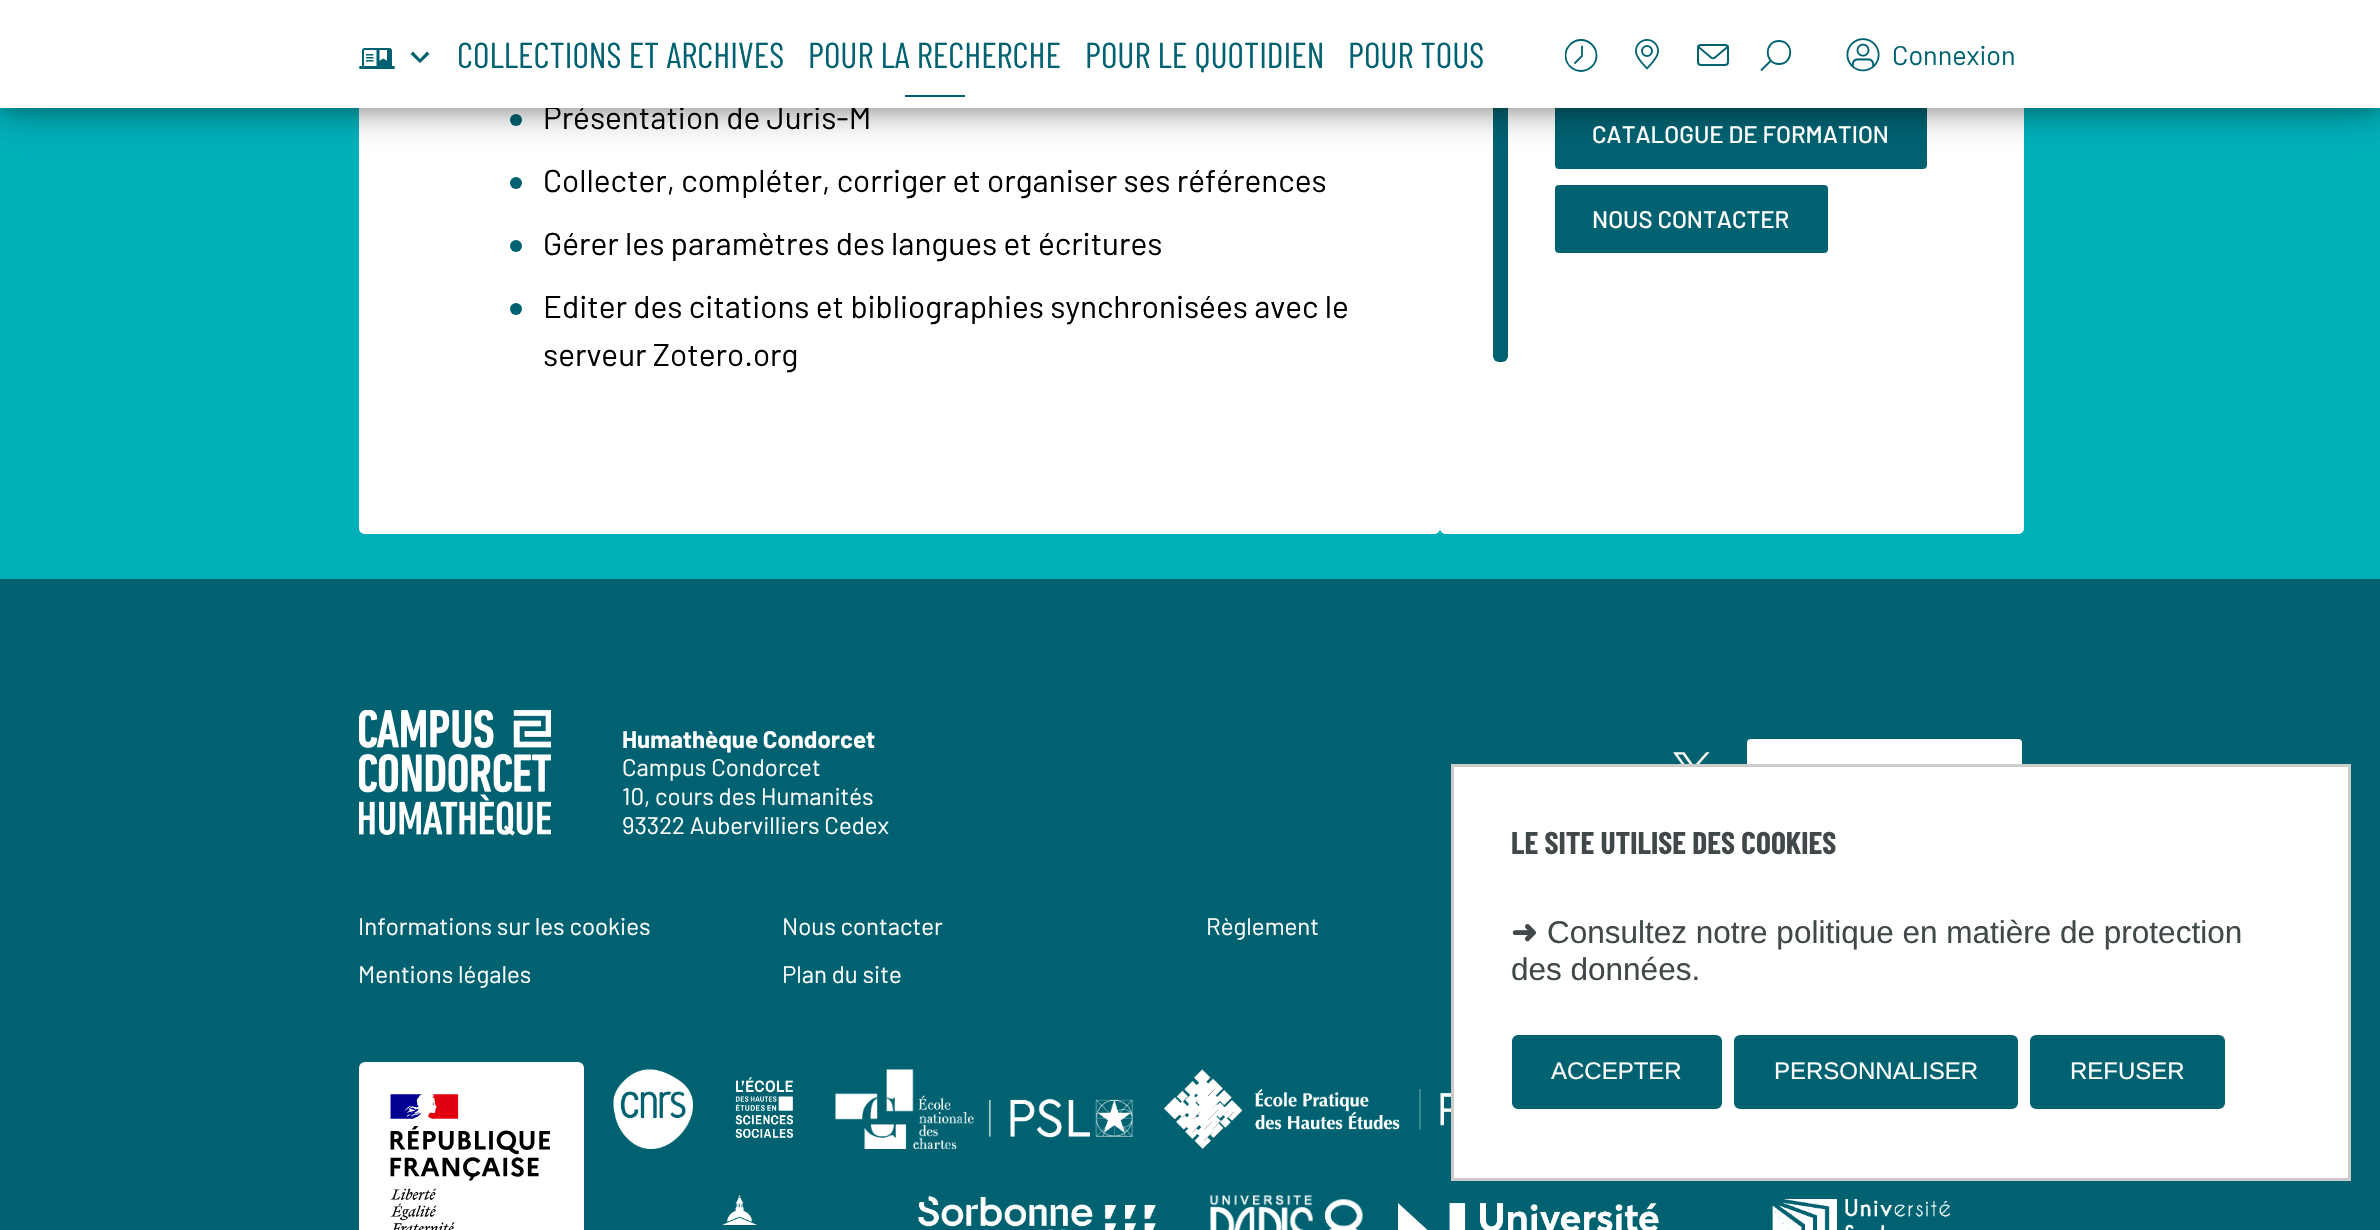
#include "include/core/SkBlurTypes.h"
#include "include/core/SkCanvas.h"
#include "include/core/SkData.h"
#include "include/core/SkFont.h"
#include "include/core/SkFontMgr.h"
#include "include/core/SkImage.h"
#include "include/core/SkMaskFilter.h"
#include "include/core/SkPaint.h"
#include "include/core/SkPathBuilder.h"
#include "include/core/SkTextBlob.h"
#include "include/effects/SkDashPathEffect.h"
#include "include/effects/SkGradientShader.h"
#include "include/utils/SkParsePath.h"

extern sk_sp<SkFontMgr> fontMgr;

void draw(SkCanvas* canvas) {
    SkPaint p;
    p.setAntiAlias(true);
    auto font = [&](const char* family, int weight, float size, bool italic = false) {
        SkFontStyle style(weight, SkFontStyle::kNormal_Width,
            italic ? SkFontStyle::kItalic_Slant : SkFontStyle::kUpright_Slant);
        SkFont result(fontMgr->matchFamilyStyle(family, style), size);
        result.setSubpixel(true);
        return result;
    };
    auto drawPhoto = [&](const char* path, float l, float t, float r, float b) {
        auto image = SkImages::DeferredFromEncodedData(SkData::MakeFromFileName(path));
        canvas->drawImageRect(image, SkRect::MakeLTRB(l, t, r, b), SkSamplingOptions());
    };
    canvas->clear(0xFF00B0B9);
    p.setColor(0xFFFFFFFF);
    canvas->drawPath(SkPathBuilder().moveTo(359, -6).lineTo(1440, -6).lineTo(1440, 528).cubicTo(1440, 531.5f, 1437.5f, 534, 1434, 534).lineTo(365, 534).cubicTo(361.5f, 534, 359, 531.5f, 359, 528).close().detach(), p);
    p.setColor(0xFF006271);
    canvas->drawCircle(516, 120, 6, p);
    p.setColor(0xFFFFFFFF);
    canvas->drawPath(SkPathBuilder().moveTo(1440, -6).lineTo(2024, -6).lineTo(2024, 528).cubicTo(2024, 531.5f, 2021.5f, 534, 2018, 534).lineTo(1446, 534).cubicTo(1442.5f, 534, 1440, 531.5f, 1440, 528).close().detach(), p);
    p.setColor(0xFF006271);
    canvas->drawRoundRect(SkRect::MakeLTRB(1493, -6, 1508, 362), 6, 6, p);
    canvas->drawRoundRect(SkRect::MakeLTRB(1554, 99, 1928, 170), 5, 5, p);
    p.setStyle(SkPaint::kStroke_Style);
    p.setStrokeWidth(2);
    p.setColor(0xFFFFFFFF);
    canvas->drawRoundRect(SkRect::MakeLTRB(1554, 99, 1928, 170), 5, 5, p);
    p.setStyle(SkPaint::kFill_Style);
    p.setColor(0x1A000000);
    p.setMaskFilter(SkMaskFilter::MakeBlur(kNormal_SkBlurStyle, 6));
    canvas->drawRect(SkRect::MakeLTRB(0, 3, 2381, 111), p);
    p.setMaskFilter(nullptr);
    p.setColor(0x66000000);
    p.setMaskFilter(SkMaskFilter::MakeBlur(kNormal_SkBlurStyle, 18));
    canvas->drawRect(SkRect::MakeLTRB(0, 3, 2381, 111), p);
    p.setMaskFilter(nullptr);
    auto font1 = font("Barlow", 400, 31.5f);
    p.setColor(0xFF000000);
    canvas->drawString("Présentation de Juris-M", 543, 129, font1, p);
    p.setColor(0xFFFFFFFF);
    canvas->drawRect(SkRect::MakeLTRB(0, 0, 2380, 108), p);
    drawPhoto("media/1.png", 359, 48, 395, 69);
    p.setColor(0xFF006271);
    canvas->drawPath(SkPathBuilder().moveTo(413, 51.5f).lineTo(420, 59).lineTo(427, 51.5f).lineTo(429.5f, 54).lineTo(420, 63).lineTo(410.5f, 54).close().detach(), p);
    auto font2 = font("Barlow Condensed", 400, 36);
    canvas->drawString("COLLECTIONS ET ARCHIVES", 457, 68, font2, p);
    canvas->drawString("POUR LA RECHERCHE", 808, 68, font2, p);
    canvas->drawRect(SkRect::MakeLTRB(905, 95, 965, 97), p);
    canvas->drawString("POUR LE QUOTIDIEN", 1085, 68, font2, p);
    canvas->drawString("POUR TOUS", 1348, 68, font2, p);
    canvas->save();
    canvas->clipRect(SkRect::MakeLTRB(1565, 39, 1598, 72));
    p.setStyle(SkPaint::kStroke_Style);
    p.setStrokeWidth(1.8f);
    canvas->drawCircle(1581, 55.5f, 15.5f, p);
    canvas->restore();
    p.setStrokeCap(SkPaint::kRound_Cap);
    canvas->drawPath(SkPathBuilder().moveTo(1582, 46.5f).lineTo(1582, 56).lineTo(1575, 63).detach(), p);
    drawPhoto("media/2.png", 1635, 39, 1659, 70);
    p.setStrokeWidth(2);
    p.setStrokeCap(SkPaint::kButt_Cap);
    canvas->drawRoundRect(SkRect::MakeLTRB(1698, 45, 1728, 65), 3, 3, p);
    p.setStrokeWidth(1.8f);
    p.setStrokeCap(SkPaint::kRound_Cap);
    canvas->drawPath(SkPathBuilder().moveTo(1698, 46.5f).lineTo(1711, 57.5f).cubicTo(1712, 58.5f, 1714, 58.5f, 1715, 57.5f).lineTo(1728, 46.5f).detach(), p);
    p.setStrokeCap(SkPaint::kButt_Cap);
    canvas->drawPath(SkPathBuilder().moveTo(1779, 41).cubicTo(1764, 41, 1764, 64, 1779, 64).cubicTo(1794, 64, 1794, 41, 1779, 41).close().moveTo(1761, 70.5f).lineTo(1771.5f, 60).detach(), p);
    drawPhoto("media/3.png", 1846, 38, 1880, 72);
    auto font3 = font("Barlow", 400, 27);
    p.setStyle(SkPaint::kFill_Style);
    canvas->drawString("Connexion", 1892, 65, font3, p);
    canvas->drawCircle(516, 183, 6, p);
    p.setColor(0xFF000000);
    canvas->drawString("Collecter, compléter, corriger et organiser ses références", 543, 192, font1, p);
    p.setColor(0xFF006271);
    canvas->drawCircle(516, 246, 6, p);
    p.setColor(0xFF000000);
    canvas->drawString("Gérer les paramètres des langues et écritures", 543, 255, font1, p);
    p.setColor(0xFF006271);
    canvas->drawCircle(516, 309, 6, p);
    p.setColor(0xFF000000);
    canvas->drawString("Editer des citations et bibliographies synchronisées avec le", 543, 318, font1, p);
    canvas->drawString("serveur Zotero.org", 543, 366, font1, p);
    auto font4 = font("Barlow", 500, 24);
    p.setColor(0xFFFFFFFF);
    canvas->drawString("CATALOGUE DE FORMATION", 1592, 143, font4, p);
    p.setColor(0xFF006271);
    canvas->drawRoundRect(SkRect::MakeLTRB(1554, 184, 1829, 254), 5, 5, p);
    p.setStyle(SkPaint::kStroke_Style);
    p.setStrokeWidth(2);
    p.setColor(0xFFFFFFFF);
    canvas->drawRoundRect(SkRect::MakeLTRB(1554, 184, 1829, 254), 5, 5, p);
    p.setStyle(SkPaint::kFill_Style);
    canvas->drawString("NOUS CONTACTER", 1592, 228, font4, p);
    p.setColor(0xFF006271);
    canvas->drawRect(SkRect::MakeLTRB(0, 579, 2380, 1230), p);
    drawPhoto("media/4.png", 359, 710, 551, 836);
    auto font5 = font("Barlow", 700, 24);
    p.setColor(0xFFFFFFFF);
    canvas->drawString("Humathèque Condorcet", 622, 748, font5, p);
    auto font6 = font("Barlow", 400, 24);
    {
        const struct { const char* s; float x, y; } items[] = {
            {"Campus Condorcet", 622, 776},
            {"10, cours des Humanités", 622, 805},
            {"93322 Aubervilliers Cedex", 622, 834},
        };
        for (auto [s, x, y] : items) {
            canvas->drawString(s, x, y, font6, p);
        }
    }
    drawPhoto("media/5.png", 1673, 752, 1710, 764);
    canvas->drawRoundRect(SkRect::MakeLTRB(1746, 738, 2023, 808), 5, 5, p);
    p.setStyle(SkPaint::kStroke_Style);
    p.setColor(0xFF006271);
    canvas->drawRoundRect(SkRect::MakeLTRB(1746, 738, 2023, 808), 5, 5, p);
    p.setStyle(SkPaint::kFill_Style);
    p.setColor(0xFFFFFFFF);
    {
        const struct { const char* s; float x, y; } items[] = {
            {"Informations sur les cookies", 358, 935},
            {"Nous contacter", 782, 935},
            {"Règlement", 1206, 935},
            {"Mentions légales", 358, 983},
            {"Plan du site", 782, 983},
        };
        for (auto [s, x, y] : items) {
            canvas->drawString(s, x, y, font6, p);
        }
    }
    canvas->drawRoundRect(SkRect::MakeLTRB(359, 1062, 584, 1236), 6, 6, p);
    drawPhoto("media/6.png", 390, 1094, 550, 1230);
    drawPhoto("media/7.png", 613, 1069, 693, 1149);
    drawPhoto("media/8.png", 735, 1077, 793, 1138);
    drawPhoto("media/9.png", 835, 1069, 1133, 1149);
    drawPhoto("media/10.png", 1164, 1069, 1451, 1149);
    drawPhoto("media/11.png", 722, 1195, 757, 1225);
    drawPhoto("media/12.png", 918, 1196, 1156, 1230);
    drawPhoto("media/13.png", 1210, 1195, 1363, 1230);
    drawPhoto("media/14.png", 1398, 1203, 1659, 1230);
    drawPhoto("media/15.png", 1772, 1199, 1951, 1230);
    canvas->drawRect(SkRect::MakeLTRB(1452.5f, 765.5f, 2349.5f, 1179.5f), p);
    p.setStyle(SkPaint::kStroke_Style);
    p.setStrokeWidth(3);
    p.setColor(0xFFCCCCCC);
    canvas->drawRect(SkRect::MakeLTRB(1452.5f, 765.5f, 2349.5f, 1179.5f), p);
    auto font7 = font("Barlow Condensed", 700, 31.5f);
    p.setStyle(SkPaint::kFill_Style);
    p.setColor(0xFF404849);
    canvas->drawString("LE SITE UTILISE DES COOKIES", 1511, 854, font7, p);
    auto font8 = font("DejaVu Sans", 700, 31.5f);
    canvas->drawString("➜", 1511, 943, font8, p);
    auto font9 = font("Liberation Sans", 400, 31.5f);
    canvas->drawString("Consultez notre politique en matière de protection", 1547, 943, font9, p);
    canvas->drawString("des données.", 1511, 980, font9, p);
    p.setColor(0xFF006271);
    canvas->drawRoundRect(SkRect::MakeLTRB(1513, 1036, 1721, 1108), 5, 5, p);
    p.setStyle(SkPaint::kStroke_Style);
    p.setStrokeWidth(2);
    canvas->drawRoundRect(SkRect::MakeLTRB(1513, 1036, 1721, 1108), 5, 5, p);
    auto font10 = font("Liberation Sans", 400, 24);
    p.setStyle(SkPaint::kFill_Style);
    p.setColor(0xFFFFFFFF);
    canvas->drawString("ACCEPTER", 1551, 1079, font10, p);
    p.setColor(0xFF006271);
    canvas->drawRoundRect(SkRect::MakeLTRB(1735, 1036, 2017, 1108), 5, 5, p);
    p.setStyle(SkPaint::kStroke_Style);
    canvas->drawRoundRect(SkRect::MakeLTRB(1735, 1036, 2017, 1108), 5, 5, p);
    p.setStyle(SkPaint::kFill_Style);
    p.setColor(0xFFFFFFFF);
    canvas->drawString("PERSONNALISER", 1774, 1079, font10, p);
    p.setColor(0xFF006271);
    canvas->drawRoundRect(SkRect::MakeLTRB(2031, 1036, 2224, 1108), 5, 5, p);
    p.setStyle(SkPaint::kStroke_Style);
    canvas->drawRoundRect(SkRect::MakeLTRB(2031, 1036, 2224, 1108), 5, 5, p);
    p.setStyle(SkPaint::kFill_Style);
    p.setColor(0xFFFFFFFF);
    canvas->drawString("REFUSER", 2070, 1079, font10, p);
}
